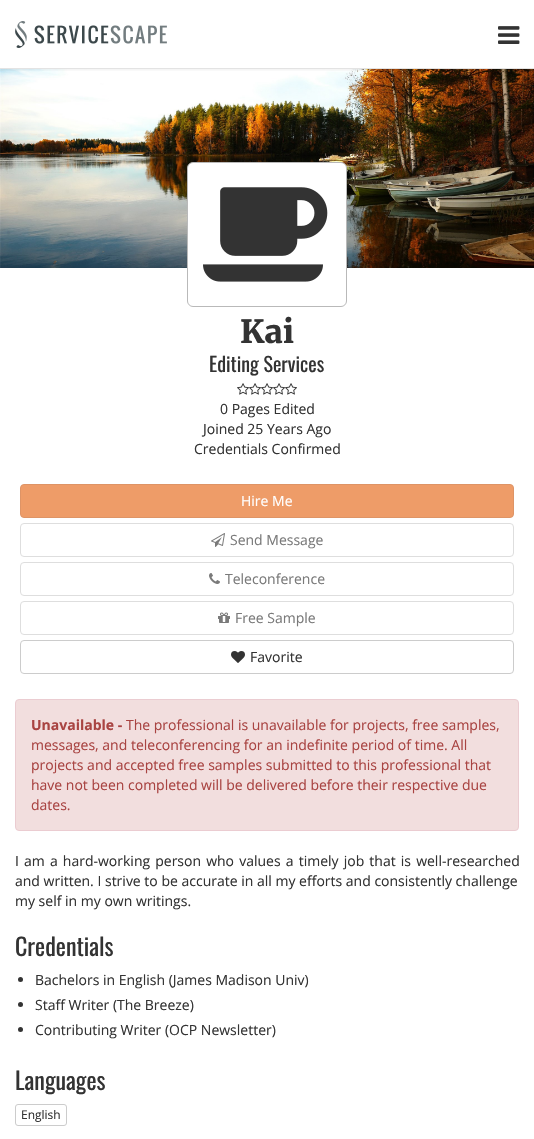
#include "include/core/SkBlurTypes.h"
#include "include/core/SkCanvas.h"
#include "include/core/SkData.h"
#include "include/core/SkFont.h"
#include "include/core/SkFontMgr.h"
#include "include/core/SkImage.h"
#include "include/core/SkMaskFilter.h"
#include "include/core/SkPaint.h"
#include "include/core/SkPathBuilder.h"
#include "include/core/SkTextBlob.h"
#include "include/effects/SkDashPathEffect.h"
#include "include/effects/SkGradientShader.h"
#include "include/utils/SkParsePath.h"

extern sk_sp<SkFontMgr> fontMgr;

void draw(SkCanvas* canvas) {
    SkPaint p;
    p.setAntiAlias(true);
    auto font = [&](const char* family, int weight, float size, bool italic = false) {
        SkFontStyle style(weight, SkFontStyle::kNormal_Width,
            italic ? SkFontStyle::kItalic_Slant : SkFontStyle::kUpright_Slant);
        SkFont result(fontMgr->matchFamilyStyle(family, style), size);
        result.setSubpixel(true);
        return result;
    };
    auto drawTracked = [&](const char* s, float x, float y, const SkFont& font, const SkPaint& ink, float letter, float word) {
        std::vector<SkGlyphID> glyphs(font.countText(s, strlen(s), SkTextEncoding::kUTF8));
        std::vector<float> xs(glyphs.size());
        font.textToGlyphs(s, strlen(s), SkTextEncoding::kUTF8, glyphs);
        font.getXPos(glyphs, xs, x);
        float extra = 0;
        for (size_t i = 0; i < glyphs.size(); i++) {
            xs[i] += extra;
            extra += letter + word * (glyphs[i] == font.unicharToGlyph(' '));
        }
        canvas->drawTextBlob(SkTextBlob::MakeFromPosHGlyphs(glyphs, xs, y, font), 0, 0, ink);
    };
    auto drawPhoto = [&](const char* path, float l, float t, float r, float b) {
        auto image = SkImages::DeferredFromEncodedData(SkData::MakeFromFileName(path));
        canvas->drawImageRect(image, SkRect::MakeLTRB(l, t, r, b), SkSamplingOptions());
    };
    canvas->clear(0xFFFFFFFF);
    drawPhoto("media/3.png", 0, 69, 534, 268);
    canvas->save();
    canvas->clipRect(SkRect::MakeLTRB(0, 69, 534, 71));
    p.setColor(0x0F000000);
    p.setMaskFilter(SkMaskFilter::MakeBlur(kNormal_SkBlurStyle, 1.5f));
    canvas->drawRect(SkRect::MakeLTRB(0, 2, 534, 70), p);
    p.setMaskFilter(nullptr);
    canvas->restore();
    p.setColor(0xFFE3E3E3);
    canvas->drawRect(SkRect::MakeLTRB(0, 68, 534, 69), p);
    drawPhoto("media/1.png", 15, 21, 167, 48);
    drawPhoto("media/2.png", 498, 26, 520, 44);
    p.setColor(0xFFFFFFFF);
    canvas->drawRoundRect(SkRect::MakeLTRB(187.5f, 162.5f, 346.5f, 306.5f), 5.5f, 5.5f, p);
    p.setStyle(SkPaint::kStroke_Style);
    p.setStrokeWidth(1);
    p.setColor(0xFFB9B9B9);
    canvas->drawRoundRect(SkRect::MakeLTRB(187.5f, 162.5f, 346.5f, 306.5f), 5.5f, 5.5f, p);
    drawPhoto("media/4.png", 203, 187, 328, 282);
    auto font1 = font("Merriweather", 300, 32);
    p.setStyle(SkPaint::kFill_Style);
    p.setColor(0xFF333333);
    canvas->drawString("Kai", 240, 343, font1, p);
    auto font2 = font("Oswald", 400, 20);
    canvas->drawString("Editing Services", 209, 372, font2, p);
    drawPhoto("media/5.png", 237, 383, 249, 395);
    drawPhoto("media/5.png", 249, 383, 261, 395);
    drawPhoto("media/5.png", 261, 383, 273, 395);
    drawPhoto("media/5.png", 273, 383, 285, 395);
    drawPhoto("media/5.png", 285, 383, 297, 395);
    auto font3 = font("Open Sans", 400, 14);
    {
        const struct { const char* s; float x, y; } items[] = {
            {"0 Pages Edited", 220, 414},
            {"Joined 25 Years Ago", 203, 434},
            {"Credentials Confirmed", 194, 454},
        };
        for (auto [s, x, y] : items) {
            canvas->drawString(s, x, y, font3, p);
        }
    }
    p.setColor(0xFFEE9C68);
    canvas->drawRoundRect(SkRect::MakeLTRB(20.5f, 484.5f, 513.5f, 517.5f), 3.5f, 3.5f, p);
    p.setStyle(SkPaint::kStroke_Style);
    p.setColor(0xFFDE9466);
    canvas->drawRoundRect(SkRect::MakeLTRB(20.5f, 484.5f, 513.5f, 517.5f), 3.5f, 3.5f, p);
    p.setStyle(SkPaint::kFill_Style);
    p.setColor(0xFFFFFFFF);
    canvas->drawString("Hire Me", 241, 506, font3, p);
    p.setStyle(SkPaint::kStroke_Style);
    p.setColor(0xFFDEDEDE);
    canvas->drawRoundRect(SkRect::MakeLTRB(20.5f, 523.5f, 513.5f, 556.5f), 3.5f, 3.5f, p);
    drawPhoto("media/6.png", 211, 533, 225, 547);
    p.setStyle(SkPaint::kFill_Style);
    p.setColor(0xFF7A7A7A);
    canvas->drawString("Send Message", 230, 545, font3, p);
    p.setStyle(SkPaint::kStroke_Style);
    p.setColor(0xFFDEDEDE);
    canvas->drawRoundRect(SkRect::MakeLTRB(20.5f, 562.5f, 513.5f, 595.5f), 3.5f, 3.5f, p);
    drawPhoto("media/7.png", 209, 573, 220, 584);
    p.setStyle(SkPaint::kFill_Style);
    p.setColor(0xFF7A7A7A);
    canvas->drawString("Teleconference", 225, 584, font3, p);
    p.setStyle(SkPaint::kStroke_Style);
    p.setColor(0xFFDEDEDE);
    canvas->drawRoundRect(SkRect::MakeLTRB(20.5f, 601.5f, 513.5f, 634.5f), 3.5f, 3.5f, p);
    drawPhoto("media/8.png", 218, 612, 230, 623);
    p.setStyle(SkPaint::kFill_Style);
    p.setColor(0xFF7A7A7A);
    canvas->drawString("Free Sample", 235, 623, font3, p);
    p.setStyle(SkPaint::kStroke_Style);
    p.setColor(0xFFCCCCCC);
    canvas->drawRoundRect(SkRect::MakeLTRB(20.5f, 640.5f, 513.5f, 673.5f), 3.5f, 3.5f, p);
    drawPhoto("media/9.png", 231, 651, 245, 663);
    p.setStyle(SkPaint::kFill_Style);
    p.setColor(0xFF333333);
    canvas->drawString("Favorite", 250, 662, font3, p);
    p.setColor(0xFFF2DEDE);
    canvas->drawRoundRect(SkRect::MakeLTRB(15.5f, 699.5f, 518.5f, 830.5f), 3.5f, 3.5f, p);
    p.setStyle(SkPaint::kStroke_Style);
    p.setColor(0xFFEBCCD1);
    canvas->drawRoundRect(SkRect::MakeLTRB(15.5f, 699.5f, 518.5f, 830.5f), 3.5f, 3.5f, p);
    auto font4 = font("Open Sans", 700, 14);
    p.setStyle(SkPaint::kFill_Style);
    p.setColor(0xFFA94442);
    canvas->drawString("Unavailable -", 31, 730, font4, p);
    {
        const struct { const char* s; float x, y; } items[] = {
            {"The professional is unavailable for projects, free samples,", 126, 730},
            {"messages, and teleconferencing for an indefinite period of time. All", 31, 750},
            {"projects and accepted free samples submitted to this professional that", 31, 770},
            {"have not been completed will be delivered before their respective due", 31, 790},
            {"dates.", 31, 810},
        };
        for (auto [s, x, y] : items) {
            canvas->drawString(s, x, y, font3, p);
        }
    }
    p.setColor(0xFF333333);
    drawTracked("I am a hard-working person who values a timely job that is well-researched", 15, 866, font3, p, 0, 1.5f);
    canvas->drawString("and written. I strive to be accurate in all my efforts and consistently challenge", 15, 886, font3, p);
    canvas->drawString("my self in my own writings.", 15, 906, font3, p);
    auto font5 = font("Oswald", 400, 24);
    canvas->drawString("Credentials", 15, 956, font5, p);
    canvas->drawCircle(20.5f, 979.5f, 2.5f, p);
    canvas->drawString("Bachelors in English (James Madison Univ)", 35, 985, font3, p);
    canvas->drawCircle(20.5f, 1004.5f, 2.5f, p);
    canvas->drawString("Staff Writer (The Breeze)", 35, 1010, font3, p);
    canvas->drawCircle(20.5f, 1029.5f, 2.5f, p);
    canvas->drawString("Contributing Writer (OCP Newsletter)", 35, 1035, font3, p);
    canvas->drawString("Languages", 15, 1090, font5, p);
    p.setStyle(SkPaint::kStroke_Style);
    p.setColor(0xFFCCCCCC);
    canvas->drawRoundRect(SkRect::MakeLTRB(15.5f, 1104.5f, 66.5f, 1125.5f), 2.5f, 2.5f, p);
    auto font6 = font("Open Sans", 400, 12);
    p.setStyle(SkPaint::kFill_Style);
    p.setColor(0xFF333333);
    canvas->drawString("English", 21, 1119, font6, p);
}
